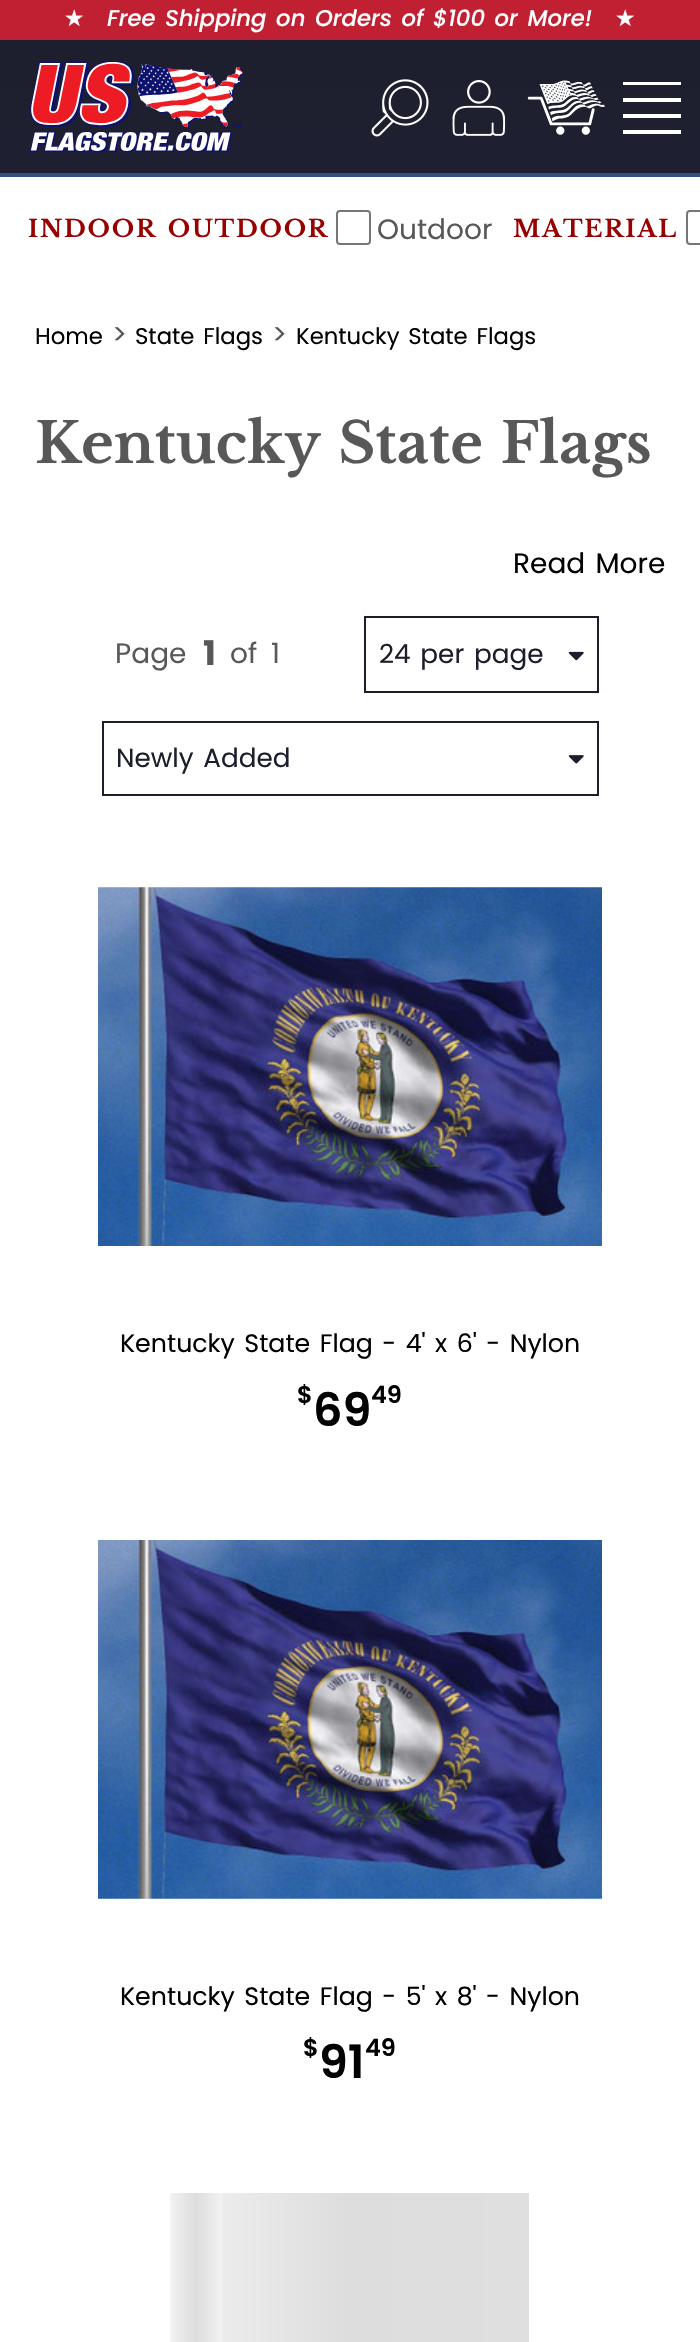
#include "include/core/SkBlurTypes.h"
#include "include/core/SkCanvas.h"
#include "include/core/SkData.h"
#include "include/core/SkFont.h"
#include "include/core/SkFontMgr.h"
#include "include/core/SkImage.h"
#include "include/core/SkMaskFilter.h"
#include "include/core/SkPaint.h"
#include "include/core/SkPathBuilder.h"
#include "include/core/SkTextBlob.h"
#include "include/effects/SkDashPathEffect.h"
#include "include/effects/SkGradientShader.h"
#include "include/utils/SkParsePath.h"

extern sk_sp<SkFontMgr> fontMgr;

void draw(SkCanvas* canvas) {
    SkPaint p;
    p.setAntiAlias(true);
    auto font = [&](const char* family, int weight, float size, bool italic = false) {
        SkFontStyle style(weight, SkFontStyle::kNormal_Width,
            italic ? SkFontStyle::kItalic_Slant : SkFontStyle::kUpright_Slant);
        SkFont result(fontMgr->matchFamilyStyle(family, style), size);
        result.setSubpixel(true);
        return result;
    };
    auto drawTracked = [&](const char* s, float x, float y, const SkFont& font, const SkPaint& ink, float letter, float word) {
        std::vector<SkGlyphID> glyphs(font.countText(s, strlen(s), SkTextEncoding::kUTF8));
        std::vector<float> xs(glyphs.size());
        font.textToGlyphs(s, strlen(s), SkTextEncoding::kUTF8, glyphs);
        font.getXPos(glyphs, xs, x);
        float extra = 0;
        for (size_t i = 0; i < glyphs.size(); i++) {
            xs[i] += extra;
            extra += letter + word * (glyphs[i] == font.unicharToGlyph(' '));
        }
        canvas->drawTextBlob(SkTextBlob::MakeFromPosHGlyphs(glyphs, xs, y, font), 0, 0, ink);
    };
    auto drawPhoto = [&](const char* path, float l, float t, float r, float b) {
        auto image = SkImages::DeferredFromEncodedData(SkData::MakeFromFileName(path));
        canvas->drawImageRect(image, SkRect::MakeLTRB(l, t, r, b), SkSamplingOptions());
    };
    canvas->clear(0xFFFFFFFF);
    {
        const SkColor colors[] = {0xFF28293A, 0xFF1D1E2D, 0xFF1E1F30, 0xFF1F2136};
        const float stops[] = {0, 0.1f, 0.9f, 1};
        const SkPoint ends[] = {{350, 0}, {350, 177}};
        p.setShader(SkGradientShader::MakeLinear(ends, colors, stops, 4, SkTileMode::kClamp));
        p.setAlpha(255);
    }
    canvas->drawRect(SkRect::MakeLTRB(0, 40, 700, 173), p);
    p.setShader(nullptr);
    p.setColor(0xFFC12033);
    canvas->drawRect(SkRect::MakeLTRB(0, 0, 700, 40), p);
    auto font1 = font("DejaVu Sans", 400, 22.75f);
    p.setColor(0xFFFFFFFF);
    canvas->drawString("★", 64, 26, font1, p);
    auto font2 = font("Poppins", 500, 22.75f, true);
    drawTracked("Free Shipping on Orders of $100 or More!", 107, 26, font2, p, 0, 2.75f);
    canvas->drawString("★", 615, 26, font1, p);
    p.setColor(0xFF365080);
    canvas->drawRect(SkRect::MakeLTRB(0, 173, 700, 177), p);
    drawPhoto("media/1.png", 30, 61, 245, 153);
    drawPhoto("media/2.png", 371, 79, 429, 137);
    drawPhoto("media/3.png", 452, 80, 506, 136);
    drawPhoto("media/4.png", 527, 80, 606, 135);
    {
        const struct { float l, t, r, b; SkColor color; } items[] = {
            {623, 82, 681, 85, 0xFFFFFFFF},
            {623, 98, 681, 102, 0xFFFFFFFF},
            {623, 114, 681, 118, 0xFFFFFFFF},
            {623, 130, 681, 134, 0xFFFFFFFF},
        };
        for (auto [l, t, r, b, color] : items) {
            p.setColor(color);
            canvas->drawRect(SkRect::MakeLTRB(l, t, r, b), p);
        }
    }
    auto font3 = font("Libre Baskerville", 700, 23.75f);
    p.setColor(0xFF990100);
    drawTracked("INDOOR OUTDOOR", 28, 237, font3, p, 1.75f, 2.75f);
    p.setStyle(SkPaint::kStroke_Style);
    p.setStrokeWidth(2);
    p.setColor(0xFF767676);
    canvas->drawRoundRect(SkRect::MakeLTRB(337, 211, 370, 244), 3, 3, p);
    auto font4 = font("Poppins", 400, 28);
    p.setStyle(SkPaint::kFill_Style);
    p.setColor(0xFF585858);
    canvas->drawString("Outdoor", 377, 239, font4, p);
    p.setColor(0xFF990100);
    drawTracked("MATERIAL", 513, 237, font3, p, 1.75f, 0);
    p.setStyle(SkPaint::kStroke_Style);
    p.setColor(0xFF767676);
    canvas->drawRoundRect(SkRect::MakeLTRB(687, 211, 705, 244), 3, 3, p);
    drawPhoto("media/5.png", 98, 887, 602, 1246);
    auto font5 = font("Poppins", 400, 25.25f);
    p.setStyle(SkPaint::kFill_Style);
    p.setColor(0xFF000000);
    drawTracked("Kentucky State Flag - 4' x 6' - Nylon", 120, 1352, font5, p, 0, 2.75f);
    auto font6 = font("Poppins", 600, 24);
    canvas->drawString("$", 297, 1403, font6, p);
    auto font7 = font("Poppins", 600, 46);
    canvas->drawString("69", 313, 1426, font7, p);
    canvas->drawString("49", 371, 1403, font6, p);
    drawPhoto("media/6.png", 98, 1540, 602, 1899);
    drawTracked("Kentucky State Flag - 5' x 8' - Nylon", 120, 2005, font5, p, 0, 2.75f);
    canvas->drawString("$", 303, 2056, font6, p);
    canvas->drawString("91", 319, 2078, font7, p);
    canvas->drawString("49", 365, 2056, font6, p);
    {
        const SkColor colors[] = {0xFFF2F2F2, 0xFFDDDDDD, 0xFFDFDFDF};
        const float stops[] = {0, 0.5f, 1};
        const SkPoint ends[] = {{170, 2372}, {529, 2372}};
        p.setShader(SkGradientShader::MakeLinear(ends, colors, stops, 3, SkTileMode::kClamp));
        p.setAlpha(255);
    }
    canvas->drawRect(SkRect::MakeLTRB(222, 2193, 529, 2342), p);
    {
        const SkColor colors[] = {0xFFF2F2F2, 0xFFDDDDDD, 0xFFF2F2F2};
        const float stops[] = {0, 0.5f, 1};
        const SkPoint ends[] = {{170, 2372}, {222, 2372}};
        p.setShader(SkGradientShader::MakeLinear(ends, colors, stops, 3, SkTileMode::kClamp));
        p.setAlpha(255);
    }
    canvas->drawRect(SkRect::MakeLTRB(170, 2193, 222, 2342), p);
    p.setShader(nullptr);
    p.setColor(0xFF585858);
    canvas->drawString("Page", 115, 663, font4, p);
    auto font8 = font("Poppins", 700, 34);
    canvas->drawString("1", 203, 665, font8, p);
    canvas->drawString("of", 230, 663, font4, p);
    canvas->drawString("1", 271, 663, font4, p);
    p.setStyle(SkPaint::kStroke_Style);
    p.setColor(0xFF1D1E2D);
    canvas->drawRect(SkRect::MakeLTRB(365, 617, 598, 692), p);
    auto font9 = font("Poppins", 400, 26.25f);
    p.setStyle(SkPaint::kFill_Style);
    drawTracked("24 per page", 379, 663, font9, p, 0, 2.75f);
    drawPhoto("media/7.png", 568, 651, 584, 661);
    p.setStyle(SkPaint::kStroke_Style);
    canvas->drawRect(SkRect::MakeLTRB(103, 722, 598, 795), p);
    p.setStyle(SkPaint::kFill_Style);
    drawTracked("Newly Added", 116, 767, font9, p, 0, 2.75f);
    drawPhoto("media/8.png", 568, 755, 584, 764);
    auto font10 = font("Poppins", 400, 22.75f);
    p.setColor(0xFF000000);
    canvas->drawString("Home", 35, 344, font10, p);
    p.setColor(0xFF585858);
    canvas->drawString(">", 112, 344, font4, p);
    p.setColor(0xFF000000);
    drawTracked("State Flags", 135, 344, font10, p, 0, 2.75f);
    p.setColor(0xFF585858);
    canvas->drawString(">", 272, 344, font4, p);
    p.setColor(0xFF000000);
    drawTracked("Kentucky State Flags", 296, 344, font10, p, 0, 2.75f);
    auto font11 = font("Libre Baskerville", 700, 56);
    p.setColor(0xFF585858);
    drawTracked("Kentucky State Flags", 35, 463, font11, p, 0, 2.75f);
    p.setColor(0xFF000000);
    drawTracked("Read More", 513, 573, font4, p, 0, 2.75f);
}
